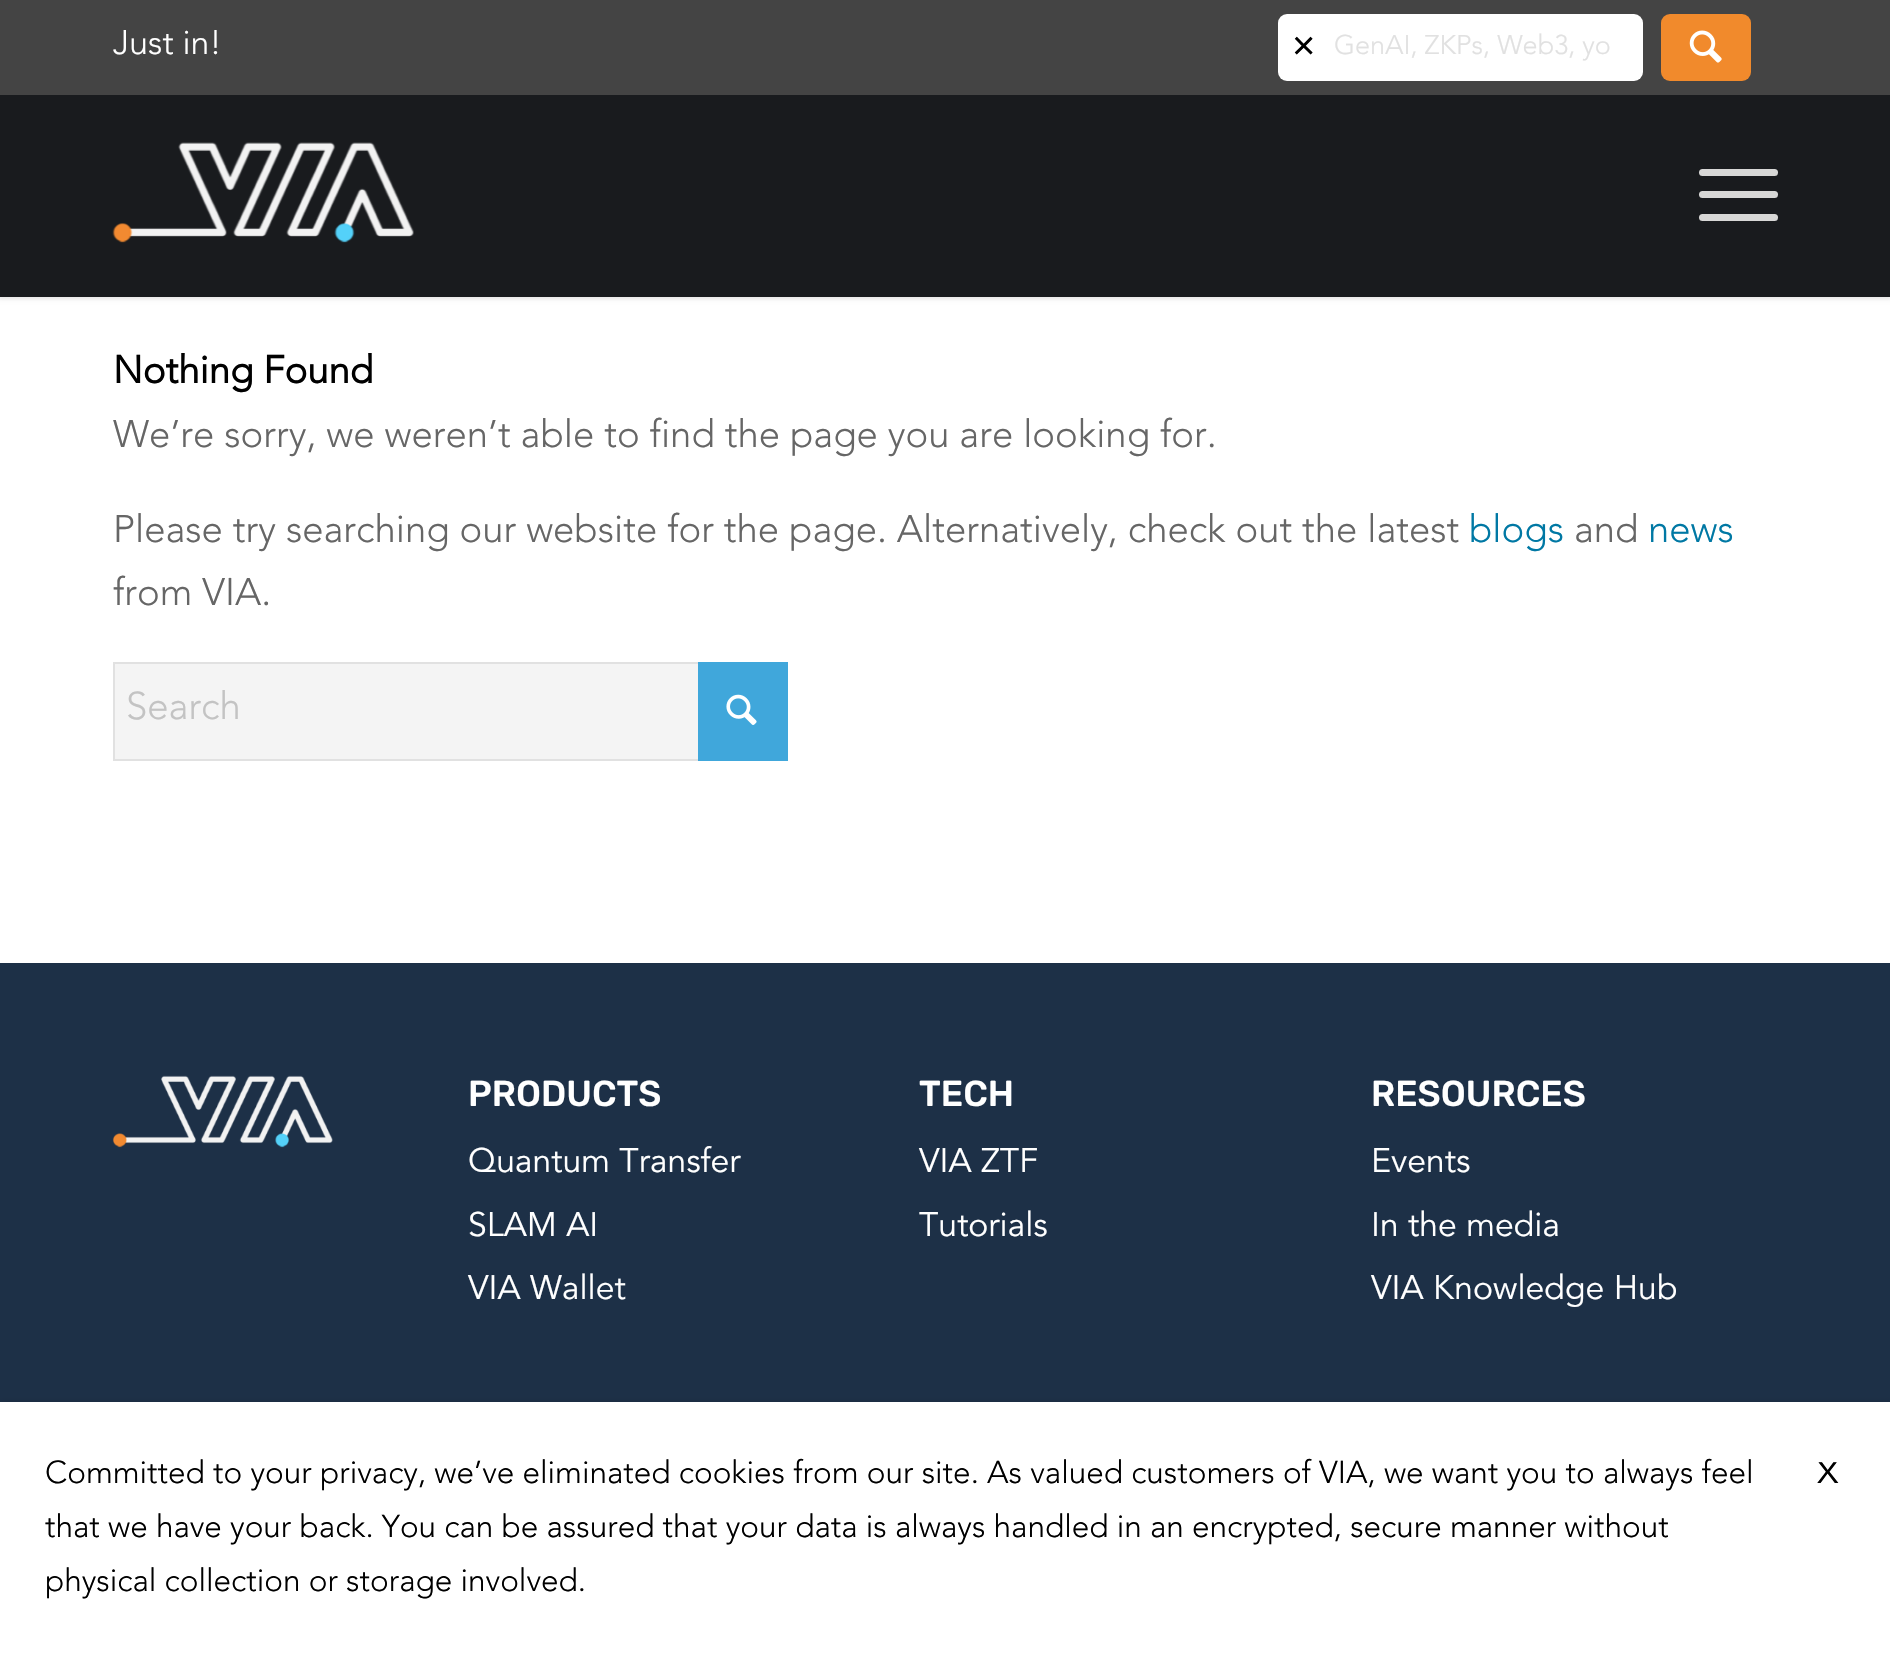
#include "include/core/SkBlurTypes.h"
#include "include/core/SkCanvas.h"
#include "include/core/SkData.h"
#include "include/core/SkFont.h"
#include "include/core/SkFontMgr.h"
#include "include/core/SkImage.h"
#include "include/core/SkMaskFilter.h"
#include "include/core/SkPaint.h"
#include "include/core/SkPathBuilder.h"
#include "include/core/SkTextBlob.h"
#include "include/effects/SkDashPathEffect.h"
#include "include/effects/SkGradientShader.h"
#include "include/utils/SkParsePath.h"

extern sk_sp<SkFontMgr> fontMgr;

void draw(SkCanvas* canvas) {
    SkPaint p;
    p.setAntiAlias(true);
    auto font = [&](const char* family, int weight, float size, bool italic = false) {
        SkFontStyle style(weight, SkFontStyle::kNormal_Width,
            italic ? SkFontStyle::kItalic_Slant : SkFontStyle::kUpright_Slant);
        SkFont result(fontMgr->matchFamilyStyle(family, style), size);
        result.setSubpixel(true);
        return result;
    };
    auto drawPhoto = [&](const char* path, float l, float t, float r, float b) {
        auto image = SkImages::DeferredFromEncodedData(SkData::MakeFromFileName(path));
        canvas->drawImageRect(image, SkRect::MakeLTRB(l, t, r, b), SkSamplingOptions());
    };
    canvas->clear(0xFFFFFFFF);
    p.setColor(0x1A000000);
    p.setMaskFilter(SkMaskFilter::MakeBlur(kNormal_SkBlurStyle, 2));
    canvas->drawRect(SkRect::MakeLTRB(-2, -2, 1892, 299), p);
    p.setMaskFilter(nullptr);
    p.setColor(0xFF444444);
    canvas->drawRect(SkRect::MakeLTRB(0, 0, 1890, 95), p);
    auto font1 = font("avenir", 400, 33.75f);
    p.setColor(0xFFFFFFFF);
    canvas->drawString("Just in!", 113, 54, font1, p);
    canvas->drawRoundRect(SkRect::MakeLTRB(1278, 14, 1643, 81), 9, 9, p);
    auto font2 = font("Liberation Sans", 400, 40);
    p.setColor(0xFF000000);
    canvas->drawString("×", 1292, 59, font2, p);
    auto font3 = font("avenir", 400, 27);
    p.setColor(0xFFE1E1E1);
    canvas->drawString("GenAI, ZKPs, Web3, yo", 1334, 54, font3, p);
    p.setColor(0xFFF18A2C);
    canvas->drawRoundRect(SkRect::MakeLTRB(1661, 14, 1751, 81), 9, 9, p);
    drawPhoto("media/1.png", 1689, 30, 1722, 63);
    p.setColor(0xFF191B1E);
    canvas->drawRect(SkRect::MakeLTRB(0, 95, 1890, 297), p);
    drawPhoto("media/2.png", 112, 142, 414, 243);
    p.setColor(0xFFD7D7D6);
    canvas->drawRoundRect(SkRect::MakeLTRB(1699, 191, 1778, 198), 3.5f, 3.5f, p);
    canvas->drawRoundRect(SkRect::MakeLTRB(1699, 169, 1778, 176), 3.5f, 3.5f, p);
    canvas->drawRoundRect(SkRect::MakeLTRB(1699, 214, 1778, 221), 3.5f, 3.5f, p);
    p.setColor(0xFF1D3047);
    canvas->drawRect(SkRect::MakeLTRB(0, 963, 1890, 1402), p);
    p.setColor(0x3B020202);
    p.setMaskFilter(SkMaskFilter::MakeBlur(kNormal_SkBlurStyle, 3.5f));
    canvas->drawRect(SkRect::MakeLTRB(2, 1404, 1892, 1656), p);
    p.setMaskFilter(nullptr);
    p.setColor(0xFFFFFFFF);
    canvas->drawRect(SkRect::MakeLTRB(0, 1402, 1890, 1653), p);
    auto font4 = font("avenir", 400, 31.5f);
    p.setColor(0xFF000000);
    {
        const struct { const char* s; float x, y; } items[] = {
            {"Committed to your privacy, we’ve eliminated cookies from our site. As valued customers of VIA, we want you to always feel", 45, 1483},
            {"that we have your back. You can be assured that your data is always handled in an encrypted, secure manner without", 45, 1537},
            {"physical collection or storage involved.", 45, 1591},
        };
        for (auto [s, x, y] : items) {
            canvas->drawString(s, x, y, font4, p);
        }
    }
    auto font5 = font("avenir", 400, 45);
    canvas->drawString("x", 1817, 1483, font5, p);
    auto font6 = font("avenir", 700, 38.25f);
    canvas->drawString("Nothing Found", 113, 383, font6, p);
    auto font7 = font("avenir", 400, 38.25f);
    p.setColor(0xFF666666);
    canvas->drawString("We’re sorry, we weren’t able to find the page you are looking for.", 113, 447, font7, p);
    canvas->drawString("Please try searching our website for the page. Alternatively, check out the latest", 113, 542, font7, p);
    p.setColor(0xFF0078A4);
    canvas->drawString("blogs", 1469, 542, font7, p);
    p.setColor(0xFF666666);
    canvas->drawString("and", 1574, 542, font7, p);
    p.setColor(0xFF0078A4);
    canvas->drawString("news", 1648, 542, font7, p);
    p.setColor(0xFF666666);
    canvas->drawString("from VIA.", 113, 605, font7, p);
    p.setColor(0xFFF4F4F4);
    canvas->drawRect(SkRect::MakeLTRB(115, 664, 698, 759), p);
    p.setStyle(SkPaint::kStroke_Style);
    p.setStrokeWidth(2);
    p.setColor(0xFFE1E1E1);
    canvas->drawRect(SkRect::MakeLTRB(114, 663, 787, 760), p);
    p.setStyle(SkPaint::kFill_Style);
    p.setColor(0xFFC3C3C3);
    canvas->drawString("Search", 126, 719, font7, p);
    p.setColor(0xFF40A7DB);
    canvas->drawRect(SkRect::MakeLTRB(698, 662, 788, 761), p);
    drawPhoto("media/3.png", 726, 694, 757, 725);
    drawPhoto("media/4.png", 112, 1075, 333, 1148);
    auto font8 = font("Rubik", 500, 36);
    p.setColor(0xFFFFFFFF);
    canvas->drawString("PRODUCTS", 468, 1106, font8, p);
    auto font9 = font("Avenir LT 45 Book", 400, 33.75f);
    {
        const struct { const char* s; float x, y; } items[] = {
            {"Quantum Transfer", 468, 1172},
            {"SLAM AI", 468, 1236},
            {"VIA Wallet", 468, 1299},
        };
        for (auto [s, x, y] : items) {
            canvas->drawString(s, x, y, font9, p);
        }
    }
    canvas->drawString("TECH", 919, 1106, font8, p);
    canvas->drawString("VIA ZTF", 919, 1172, font9, p);
    canvas->drawString("Tutorials", 919, 1236, font9, p);
    canvas->drawString("RESOURCES", 1371, 1106, font8, p);
    {
        const struct { const char* s; float x, y; } items[] = {
            {"Events", 1371, 1172},
            {"In the media", 1371, 1236},
            {"VIA Knowledge Hub", 1371, 1299},
        };
        for (auto [s, x, y] : items) {
            canvas->drawString(s, x, y, font9, p);
        }
    }
}
